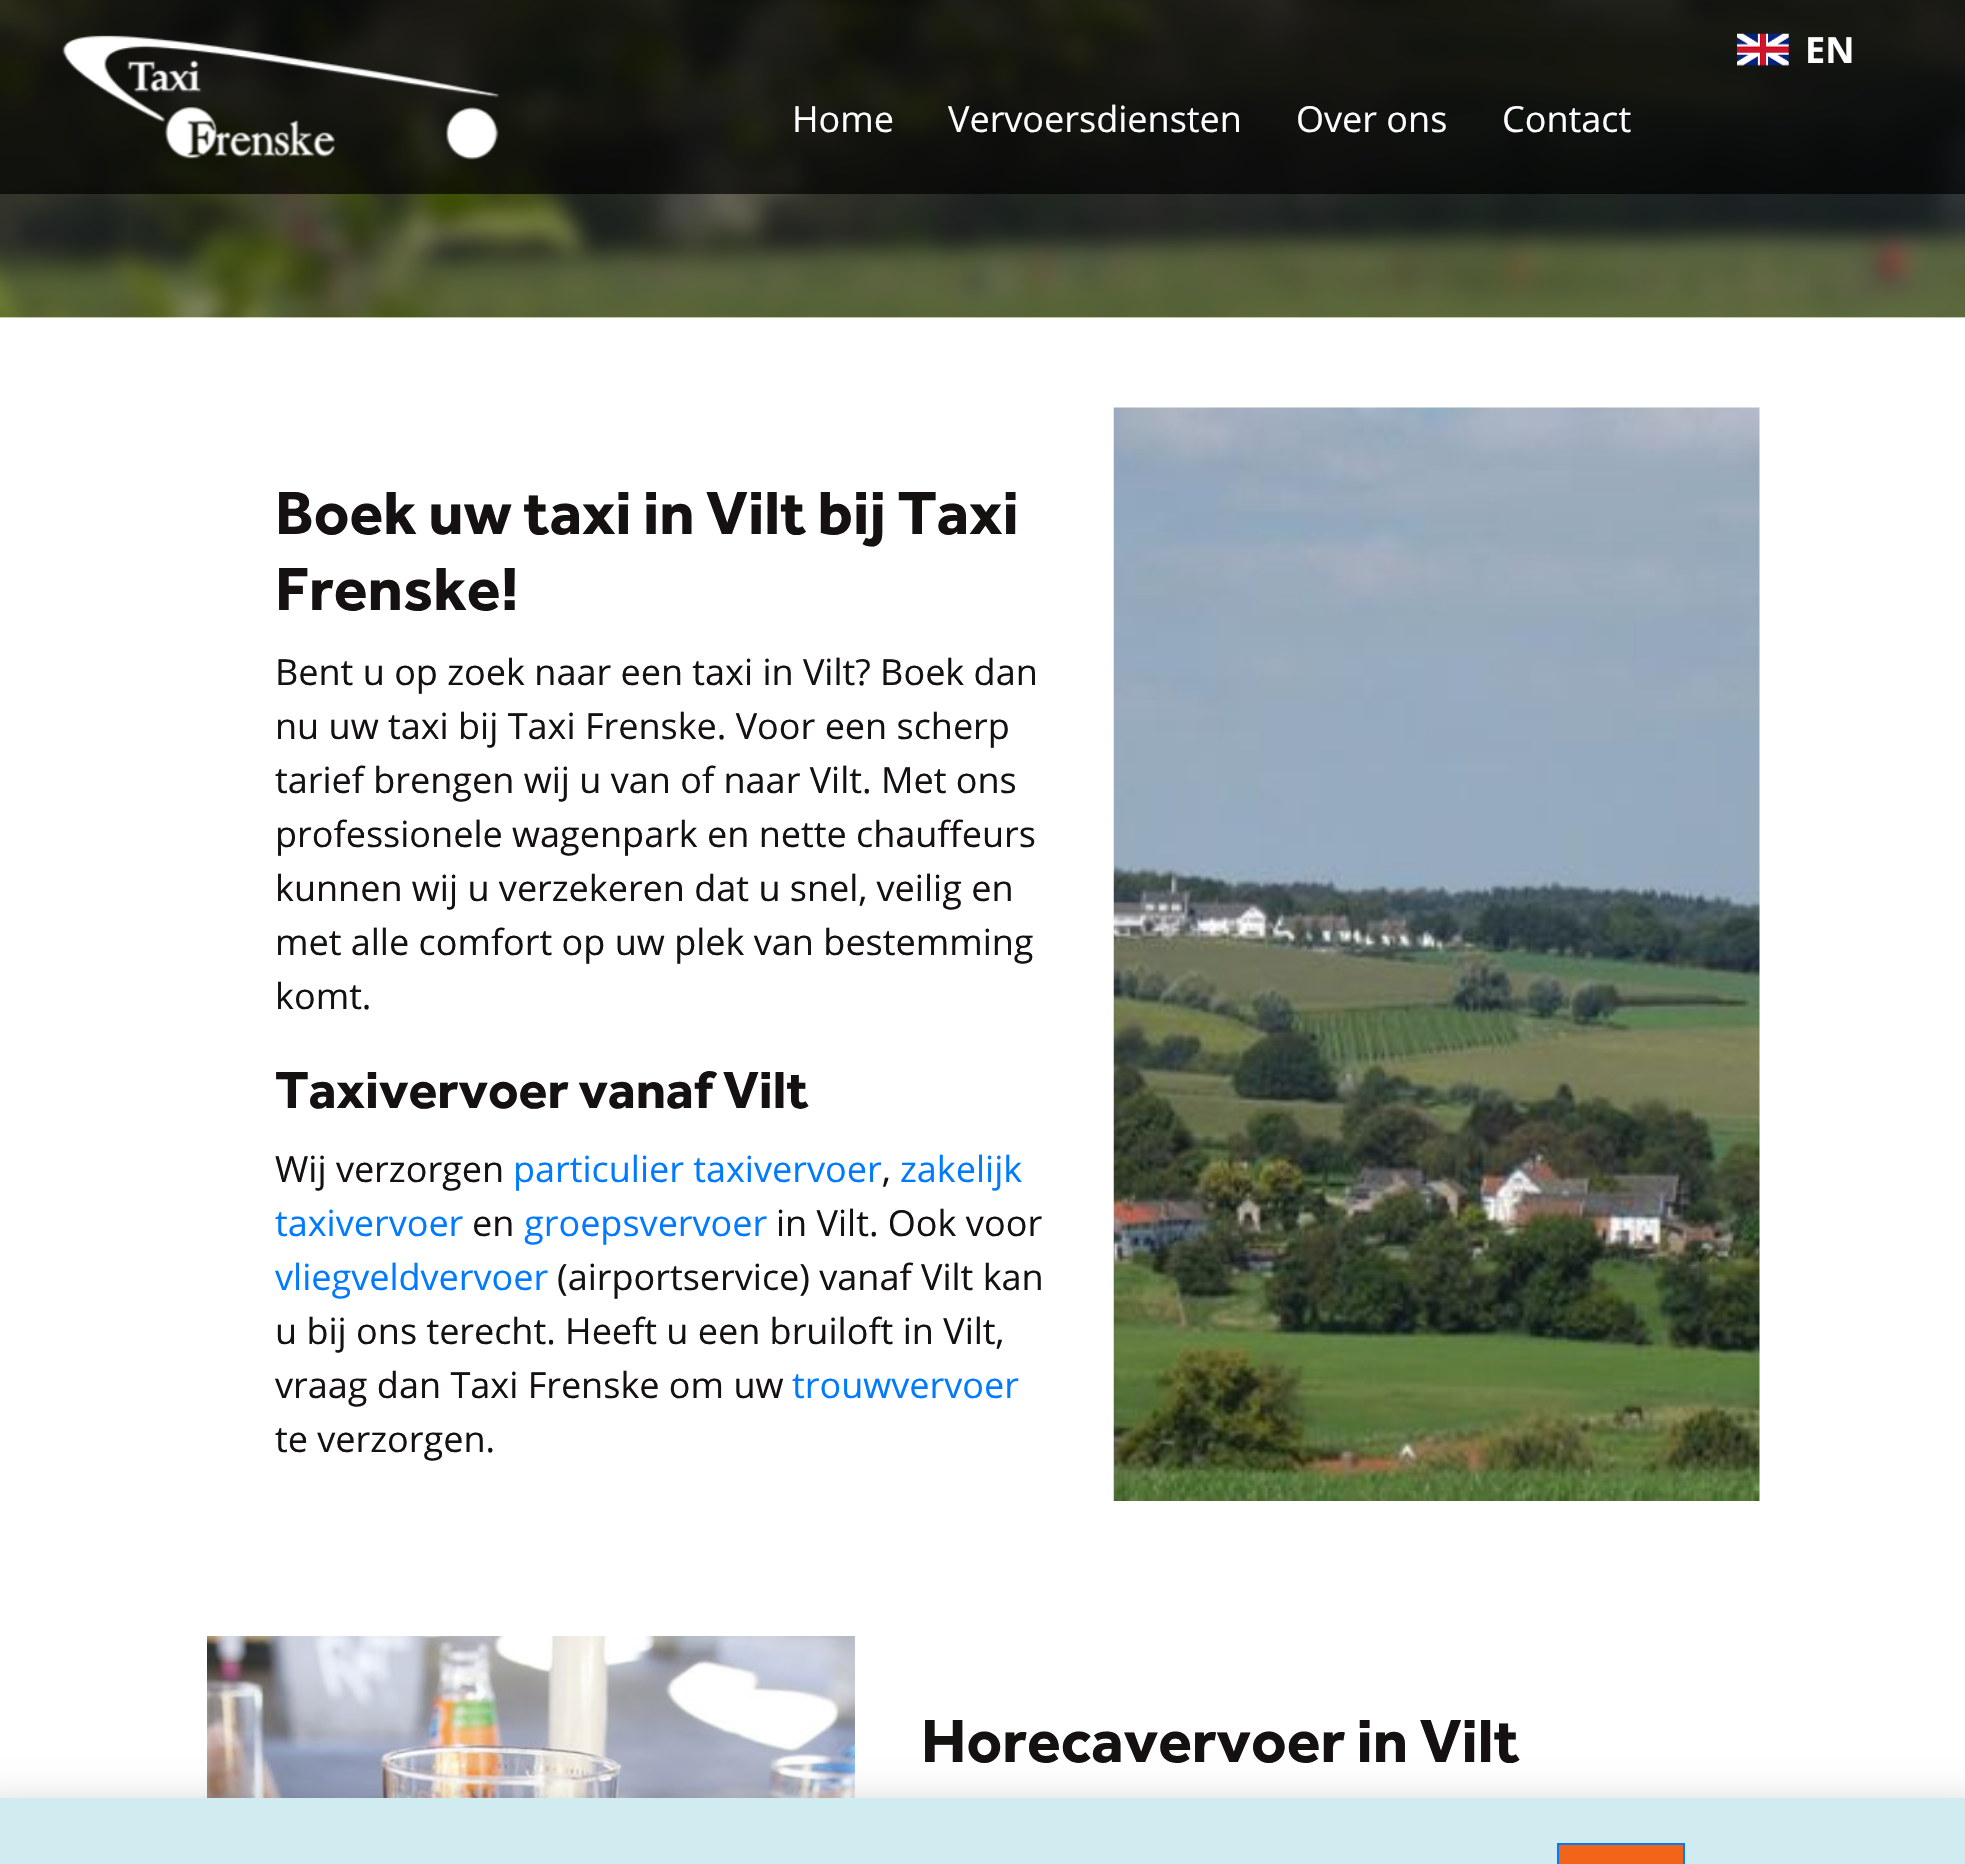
#include "include/core/SkBlurTypes.h"
#include "include/core/SkCanvas.h"
#include "include/core/SkData.h"
#include "include/core/SkFont.h"
#include "include/core/SkFontMgr.h"
#include "include/core/SkImage.h"
#include "include/core/SkMaskFilter.h"
#include "include/core/SkPaint.h"
#include "include/core/SkPathBuilder.h"
#include "include/core/SkTextBlob.h"
#include "include/effects/SkDashPathEffect.h"
#include "include/effects/SkGradientShader.h"
#include "include/utils/SkParsePath.h"

extern sk_sp<SkFontMgr> fontMgr;

void draw(SkCanvas* canvas) {
    SkPaint p;
    p.setAntiAlias(true);
    auto font = [&](const char* family, int weight, float size, bool italic = false) {
        SkFontStyle style(weight, SkFontStyle::kNormal_Width,
            italic ? SkFontStyle::kItalic_Slant : SkFontStyle::kUpright_Slant);
        SkFont result(fontMgr->matchFamilyStyle(family, style), size);
        result.setSubpixel(true);
        return result;
    };
    auto drawPhoto = [&](const char* path, float l, float t, float r, float b) {
        auto image = SkImages::DeferredFromEncodedData(SkData::MakeFromFileName(path));
        canvas->drawImageRect(image, SkRect::MakeLTRB(l, t, r, b), SkSamplingOptions());
    };
    canvas->clear(0xFFFFFFFF);
    drawPhoto("media/1.png", 0, 0, 1965, 318);
    p.setColor(0xB3000000);
    canvas->drawRect(SkRect::MakeLTRB(0, 0, 1965, 194), p);
    drawPhoto("media/2.png", 62, 35, 499, 160);
    drawPhoto("media/3.png", 1737, 33, 1789, 66);
    auto font1 = font("Open Sans", 700, 36);
    p.setColor(0xFFFFFFFF);
    canvas->drawString("EN", 1805, 63, font1, p);
    auto font2 = font("Open Sans", 400, 36);
    {
        const struct { const char* s; float x, y; } items[] = {
            {"Home", 792, 132},
            {"Vervoersdiensten", 948, 132},
            {"Over ons", 1296, 132},
            {"Contact", 1502, 132},
        };
        for (auto [s, x, y] : items) {
            canvas->drawString(s, x, y, font2, p);
        }
    }
    auto font3 = font("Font", 700, 63);
    p.setColor(0xFF151111);
    canvas->drawString("Boek uw taxi in Vilt bij Taxi", 275, 534, font3, p);
    canvas->drawString("Frenske!", 275, 610, font3, p);
    {
        const struct { const char* s; float x, y; } items[] = {
            {"Bent u op zoek naar een taxi in Vilt? Boek dan", 275, 685},
            {"nu uw taxi bij Taxi Frenske. Voor een scherp", 275, 739},
            {"tarief brengen wij u van of naar Vilt. Met ons", 275, 793},
            {"professionele wagenpark en nette chauffeurs", 275, 847},
            {"kunnen wij u verzekeren dat u snel, veilig en", 275, 901},
            {"met alle comfort op uw plek van bestemming", 275, 955},
            {"komt.", 275, 1009},
        };
        for (auto [s, x, y] : items) {
            canvas->drawString(s, x, y, font2, p);
        }
    }
    auto font4 = font("Font", 700, 54);
    canvas->drawString("Taxivervoer vanaf Vilt", 275, 1108, font4, p);
    canvas->drawString("Wij verzorgen", 275, 1182, font2, p);
    p.setColor(0xFF007BFF);
    canvas->drawString("particulier taxivervoer", 513, 1182, font2, p);
    p.setColor(0xFF151111);
    canvas->drawString(",", 882, 1182, font2, p);
    p.setColor(0xFF007BFF);
    canvas->drawString("zakelijk", 900, 1182, font2, p);
    canvas->drawString("taxivervoer", 275, 1236, font2, p);
    p.setColor(0xFF151111);
    canvas->drawString("en", 472, 1236, font2, p);
    p.setColor(0xFF007BFF);
    canvas->drawString("groepsvervoer", 524, 1236, font2, p);
    p.setColor(0xFF151111);
    canvas->drawString("in Vilt. Ook voor", 776, 1236, font2, p);
    p.setColor(0xFF007BFF);
    canvas->drawString("vliegveldvervoer", 275, 1290, font2, p);
    p.setColor(0xFF151111);
    {
        const struct { const char* s; float x, y; } items[] = {
            {"(airportservice) vanaf Vilt kan", 557, 1290},
            {"u bij ons terecht. Heeft u een bruiloft in Vilt,", 275, 1344},
            {"vraag dan Taxi Frenske om uw", 275, 1398},
        };
        for (auto [s, x, y] : items) {
            canvas->drawString(s, x, y, font2, p);
        }
    }
    p.setColor(0xFF007BFF);
    canvas->drawString("trouwvervoer", 792, 1398, font2, p);
    p.setColor(0xFF151111);
    canvas->drawString("te verzorgen.", 275, 1452, font2, p);
    drawPhoto("media/4.png", 1113, 407, 1760, 1501);
    drawPhoto("media/5.png", 207, 1636, 855, 1798);
    canvas->drawString("Horecavervoer in Vilt", 921, 1762, font3, p);
    p.setColor(0x33000000);
    p.setMaskFilter(SkMaskFilter::MakeBlur(kNormal_SkBlurStyle, 20));
    canvas->drawRect(SkRect::MakeLTRB(-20, 1805, 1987, 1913), p);
    p.setMaskFilter(nullptr);
    p.setColor(0xFFD1ECF1);
    canvas->drawRect(SkRect::MakeLTRB(0, 1798, 1965, 1864), p);
    p.setColor(0xFFF26419);
    canvas->drawRect(SkRect::MakeLTRB(1558, 1844, 1684, 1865), p);
    p.setStyle(SkPaint::kStroke_Style);
    p.setStrokeWidth(2);
    p.setColor(0xFF007BFF);
    canvas->drawRect(SkRect::MakeLTRB(1558, 1844, 1684, 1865), p);
}
